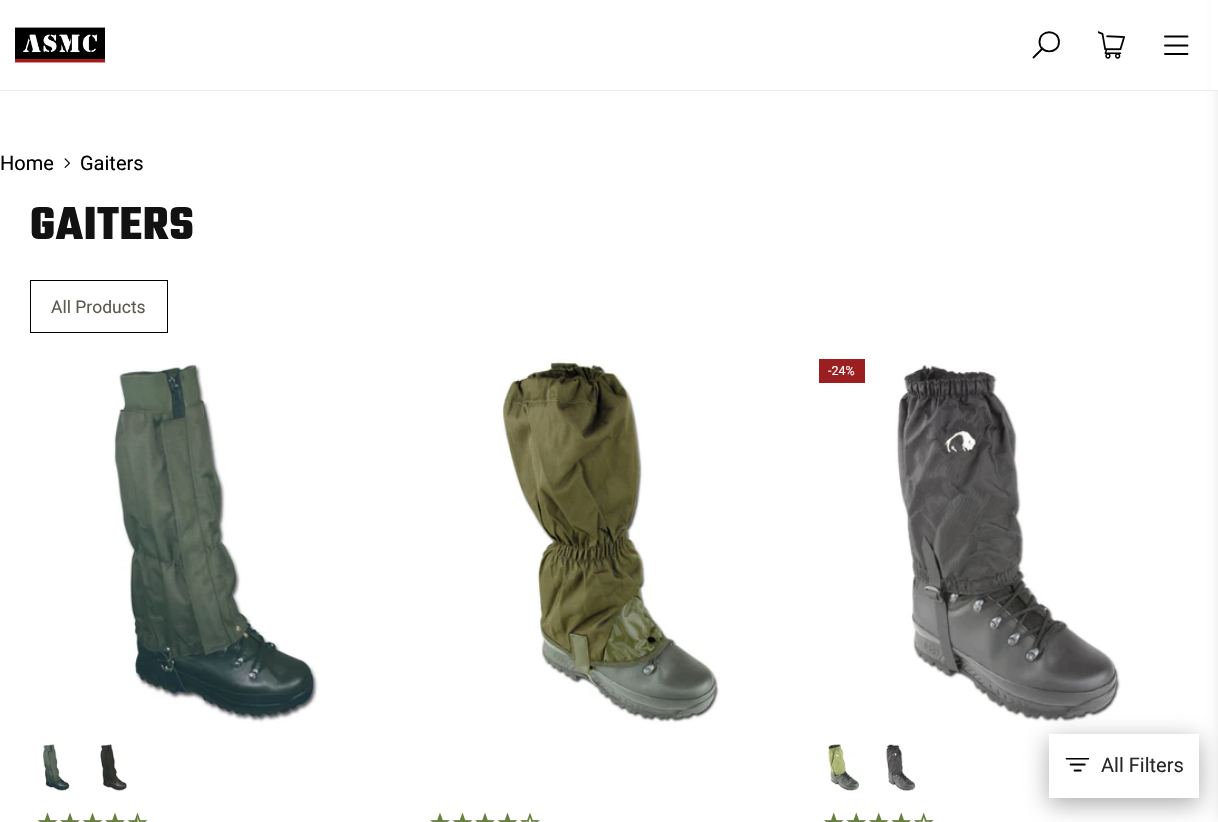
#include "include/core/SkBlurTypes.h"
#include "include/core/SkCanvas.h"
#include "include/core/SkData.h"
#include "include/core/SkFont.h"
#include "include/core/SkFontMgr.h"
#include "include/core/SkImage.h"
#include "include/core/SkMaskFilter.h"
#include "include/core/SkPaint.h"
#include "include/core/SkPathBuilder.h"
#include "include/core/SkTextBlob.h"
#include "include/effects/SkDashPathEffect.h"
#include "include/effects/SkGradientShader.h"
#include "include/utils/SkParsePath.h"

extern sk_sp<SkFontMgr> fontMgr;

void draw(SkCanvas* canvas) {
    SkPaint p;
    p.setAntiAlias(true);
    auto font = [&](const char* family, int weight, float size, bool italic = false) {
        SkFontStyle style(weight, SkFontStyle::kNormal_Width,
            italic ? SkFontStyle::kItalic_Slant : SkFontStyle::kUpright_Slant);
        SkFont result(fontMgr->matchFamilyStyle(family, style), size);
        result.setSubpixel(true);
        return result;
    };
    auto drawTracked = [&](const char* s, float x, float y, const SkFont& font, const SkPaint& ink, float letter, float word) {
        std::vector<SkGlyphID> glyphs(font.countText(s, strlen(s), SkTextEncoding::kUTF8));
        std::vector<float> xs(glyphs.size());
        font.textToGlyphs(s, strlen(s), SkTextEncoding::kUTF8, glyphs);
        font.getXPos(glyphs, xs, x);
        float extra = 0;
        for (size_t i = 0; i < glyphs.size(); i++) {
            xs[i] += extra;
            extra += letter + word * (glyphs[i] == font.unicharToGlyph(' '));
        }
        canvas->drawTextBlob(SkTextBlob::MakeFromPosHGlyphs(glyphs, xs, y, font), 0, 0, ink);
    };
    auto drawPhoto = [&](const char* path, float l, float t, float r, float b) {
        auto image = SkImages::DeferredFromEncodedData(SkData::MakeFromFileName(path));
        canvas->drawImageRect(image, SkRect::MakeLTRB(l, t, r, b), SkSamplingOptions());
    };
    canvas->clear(0xFFFFFFFF);
    p.setColor(0x1A000000);
    p.setMaskFilter(SkMaskFilter::MakeBlur(kNormal_SkBlurStyle, 6));
    canvas->drawRect(SkRect::MakeLTRB(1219, -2, 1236, 820), p);
    p.setMaskFilter(nullptr);
    p.setColor(0xFFFFFFFF);
    canvas->drawRect(SkRect::MakeLTRB(1211, 0, 1218, 90), p);
    p.setColor(0xFFECECEC);
    canvas->drawRect(SkRect::MakeLTRB(0, 90, 1218, 91), p);
    drawPhoto("media/1.png", 15, 27, 105, 63);
    p.setStyle(SkPaint::kStroke_Style);
    p.setStrokeWidth(1.8f);
    p.setColor(0xFF000000);
    canvas->drawPath(SkPathBuilder().moveTo(1059, 42).cubicTo(1059, 54.5f, 1039.5f, 54.5f, 1039.5f, 42).cubicTo(1039.5f, 29, 1059, 29, 1059, 42).close().detach(), p);
    p.setStrokeCap(SkPaint::kRound_Cap);
    canvas->drawPath(SkPathBuilder().moveTo(1042.5f, 48.5f).lineTo(1033.5f, 57.5f).detach(), p);
    drawPhoto("media/2.png", 1098, 31, 1125, 59);
    p.setStrokeWidth(1.9f);
    canvas->drawPath(SkPathBuilder().moveTo(1165, 45.5f).lineTo(1187.5f, 45.5f).moveTo(1165, 36.5f).lineTo(1187.5f, 36.5f).moveTo(1165, 54).lineTo(1187.5f, 54).detach(), p);
    auto font1 = font("Roboto", 400, 20);
    p.setStyle(SkPaint::kFill_Style);
    canvas->drawString("Home", 0, 170, font1, p);
    drawPhoto("media/3.png", 64, 158, 70, 168);
    canvas->drawString("Gaiters", 80, 170, font1, p);
    auto font2 = font("Teko", 700, 50);
    p.setColor(0xFF121212);
    drawTracked("GAITERS", 30, 239, font2, p, 0.75f, 0);
    p.setStyle(SkPaint::kStroke_Style);
    p.setStrokeWidth(1);
    p.setStrokeCap(SkPaint::kButt_Cap);
    p.setColor(0xFF000000);
    canvas->drawRect(SkRect::MakeLTRB(30.5f, 280.5f, 167.5f, 332.5f), p);
    auto font3 = font("Roboto", 400, 17.5f);
    p.setStyle(SkPaint::kFill_Style);
    p.setColor(0xFF5C594F);
    canvas->drawString("All Products", 51, 313, font3, p);
    drawPhoto("media/4.png", 113, 364, 316, 724);
    drawPhoto("media/5.png", 316, 364, 318, 722);
    drawPhoto("media/6.png", 41, 744, 70, 791);
    drawPhoto("media/7.png", 99, 744, 128, 791);
    drawPhoto("media/8.png", 37, 812, 58, 822);
    drawPhoto("media/9.png", 60, 812, 80, 822);
    drawPhoto("media/8.png", 82, 812, 103, 822);
    drawPhoto("media/9.png", 105, 812, 125, 822);
    drawPhoto("media/10.png", 127, 812, 148, 822);
    drawPhoto("media/11.png", 501, 359, 720, 723);
    drawPhoto("media/9.png", 430, 812, 450, 822);
    drawPhoto("media/8.png", 452, 812, 473, 822);
    drawPhoto("media/9.png", 475, 812, 495, 822);
    drawPhoto("media/8.png", 497, 812, 518, 822);
    drawPhoto("media/12.png", 520, 812, 540, 822);
    p.setColor(0xFF9B1E20);
    canvas->drawRect(SkRect::MakeLTRB(819, 359, 865, 383), p);
    auto font4 = font("Roboto", 400, 12.5f);
    p.setColor(0xFFFFFFFF);
    canvas->drawString("-24%", 828, 375, font4, p);
    drawPhoto("media/13.png", 890, 363, 1131, 722);
    drawPhoto("media/14.png", 825, 744, 860, 791);
    drawPhoto("media/15.png", 885, 744, 916, 791);
    drawPhoto("media/16.png", 824, 812, 844, 822);
    drawPhoto("media/17.png", 846, 812, 866, 822);
    drawPhoto("media/16.png", 869, 812, 889, 822);
    drawPhoto("media/17.png", 891, 812, 911, 822);
    drawPhoto("media/18.png", 914, 812, 934, 822);
    p.setColor(0x99707070);
    p.setMaskFilter(SkMaskFilter::MakeBlur(kNormal_SkBlurStyle, 12.5f));
    canvas->drawRect(SkRect::MakeLTRB(1049, 740, 1199, 804), p);
    p.setMaskFilter(nullptr);
    p.setColor(0xFFFFFFFF);
    canvas->drawRect(SkRect::MakeLTRB(1049, 734, 1199, 798), p);
    drawPhoto("media/19.png", 1065, 758, 1089, 772);
    p.setColor(0xFF282828);
    canvas->drawString("All Filters", 1101, 772, font1, p);
}
